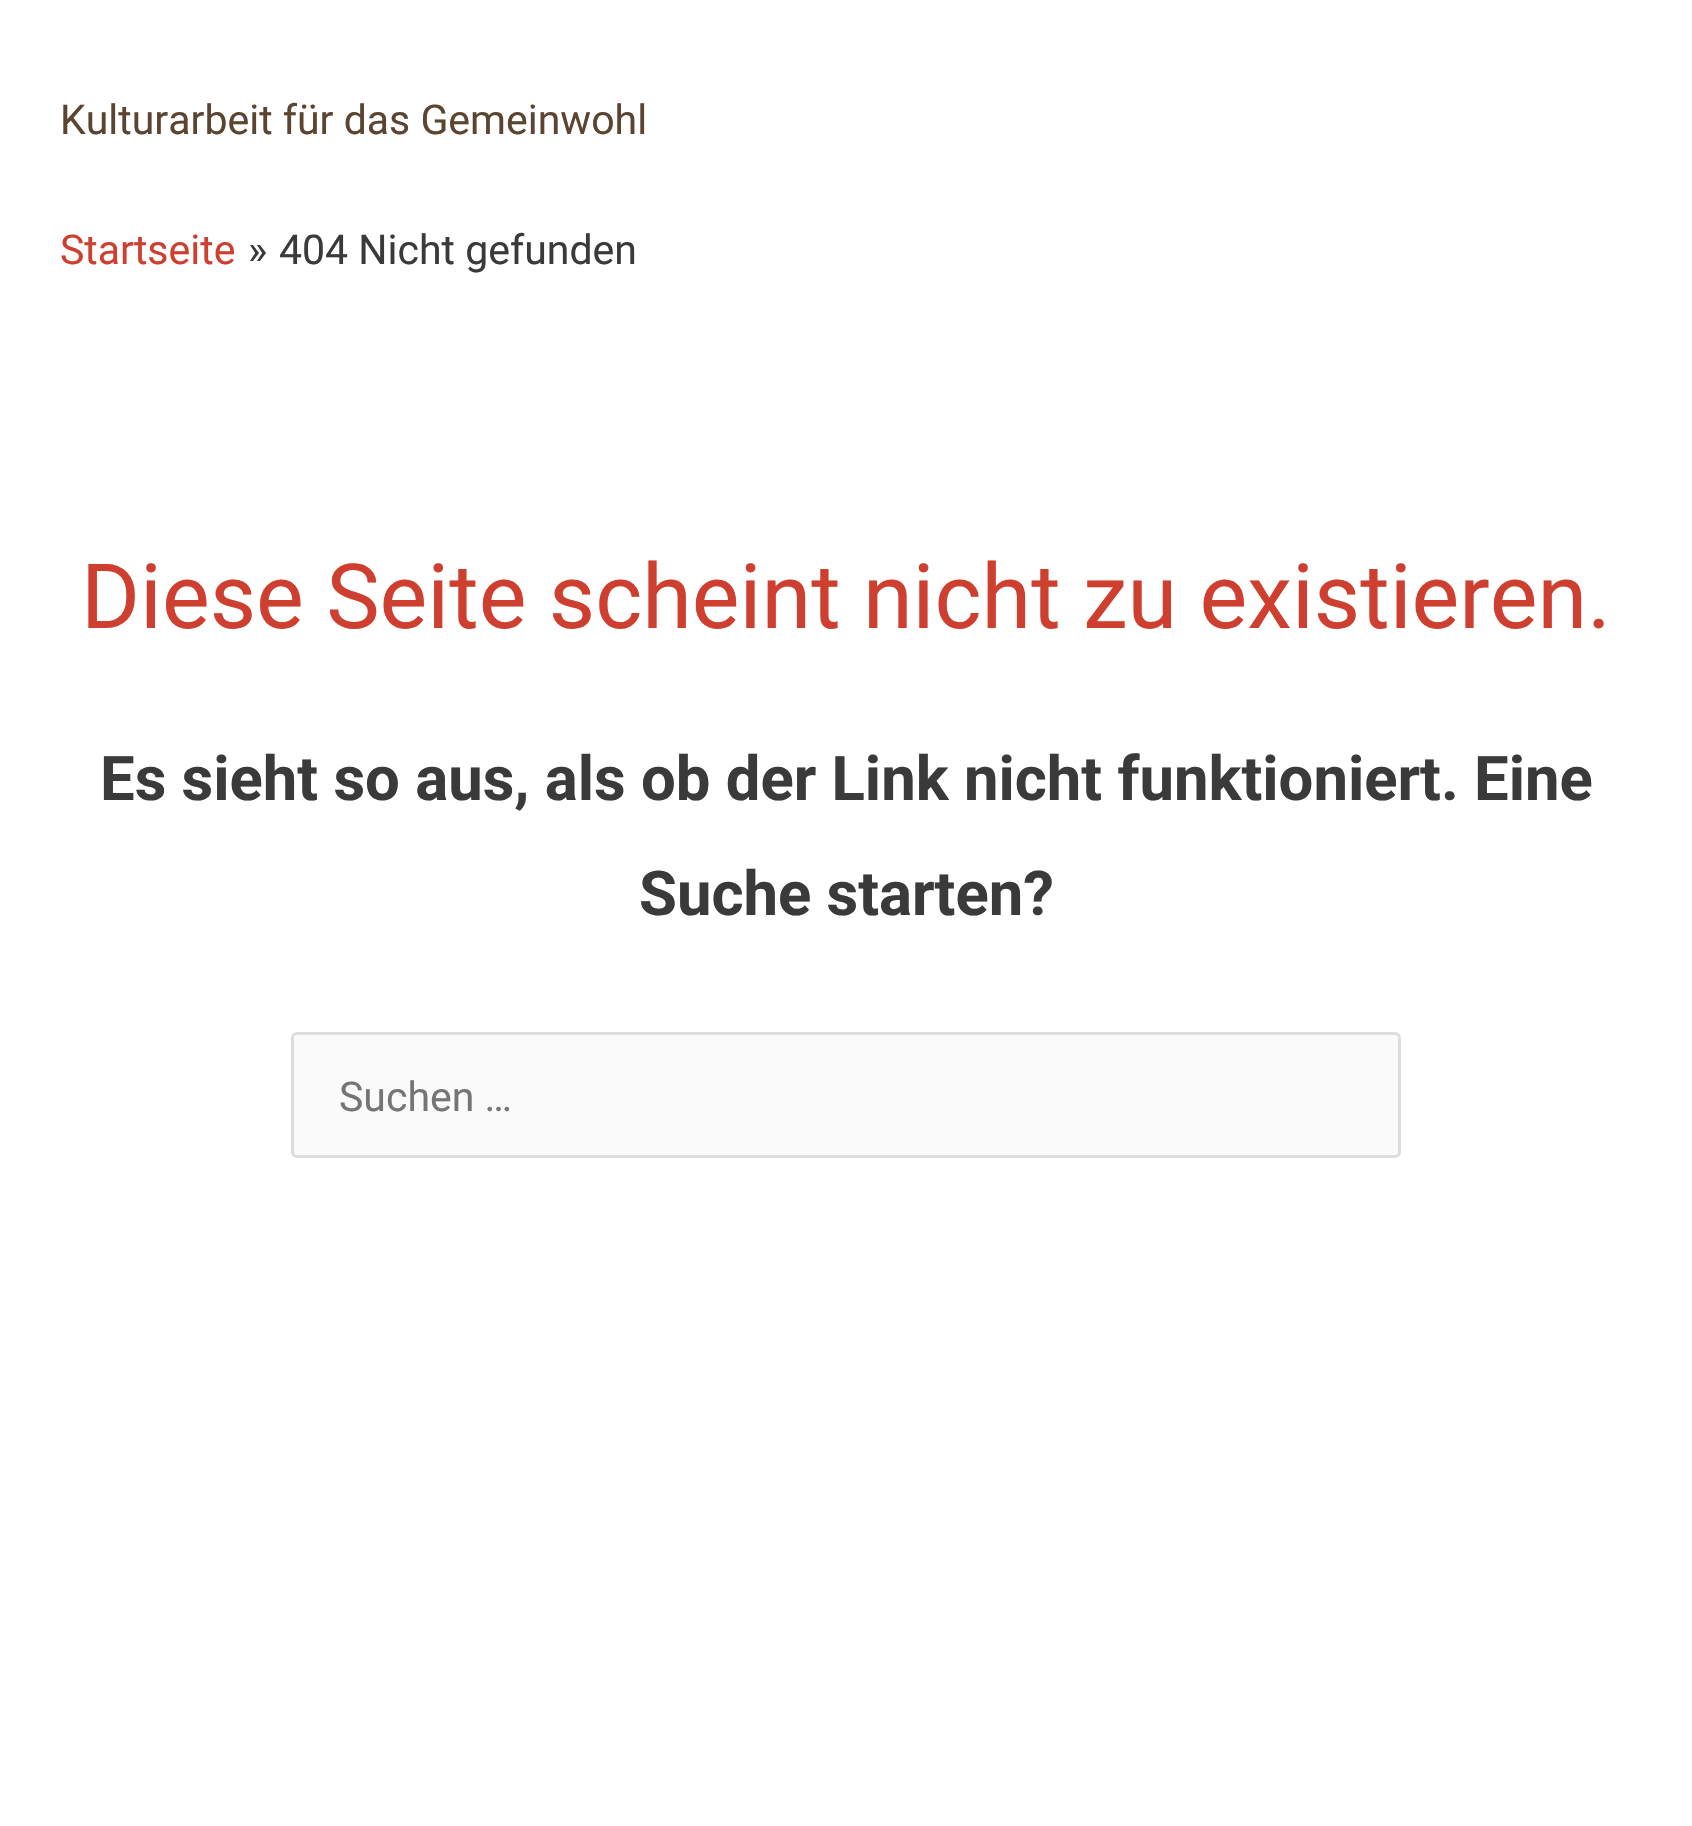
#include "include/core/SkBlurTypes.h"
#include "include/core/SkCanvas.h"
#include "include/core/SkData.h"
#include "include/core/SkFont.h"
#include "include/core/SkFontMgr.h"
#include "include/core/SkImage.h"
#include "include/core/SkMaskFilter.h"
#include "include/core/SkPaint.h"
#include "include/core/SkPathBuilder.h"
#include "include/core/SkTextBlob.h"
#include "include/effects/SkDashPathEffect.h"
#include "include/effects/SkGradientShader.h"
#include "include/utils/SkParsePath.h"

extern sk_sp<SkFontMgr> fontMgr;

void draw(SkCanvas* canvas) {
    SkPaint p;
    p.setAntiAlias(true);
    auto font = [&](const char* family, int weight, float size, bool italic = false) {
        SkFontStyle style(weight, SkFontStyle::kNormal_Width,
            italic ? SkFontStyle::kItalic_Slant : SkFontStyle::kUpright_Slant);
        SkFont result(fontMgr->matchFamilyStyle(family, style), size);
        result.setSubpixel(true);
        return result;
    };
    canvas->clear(0xFFFFFFFF);
    auto font1 = font("Roboto", 400, 41);
    p.setColor(0xFF5B4430);
    canvas->drawString("Kulturarbeit für das Gemeinwohl", 60, 134, font1, p);
    p.setColor(0xFFCE3F2F);
    canvas->drawString("Startseite", 60, 264, font1, p);
    p.setColor(0xFF3A3A3A);
    canvas->drawString("»", 248, 264, font1, p);
    canvas->drawString("404 Nicht gefunden", 279, 264, font1, p);
    auto font2 = font("Roboto", 400, 90);
    p.setColor(0xFFCE3F2F);
    canvas->drawString("Diese Seite scheint nicht zu existieren.", 81, 628, font2, p);
    auto font3 = font("Roboto", 700, 61.6f);
    p.setColor(0xFF3A3A3A);
    canvas->drawString("Es sieht so aus, als ob der Link nicht funktioniert. Eine", 100, 800, font3, p);
    canvas->drawString("Suche starten?", 639, 915, font3, p);
    p.setColor(0xFFFAFAFA);
    canvas->drawRoundRect(SkRect::MakeLTRB(292.5f, 1033.5f, 1399.5f, 1156.5f), 4.5f, 4.5f, p);
    p.setStyle(SkPaint::kStroke_Style);
    p.setStrokeWidth(3);
    p.setColor(0xFFDDDDDD);
    canvas->drawRoundRect(SkRect::MakeLTRB(292.5f, 1033.5f, 1399.5f, 1156.5f), 4.5f, 4.5f, p);
    p.setStyle(SkPaint::kFill_Style);
    p.setColor(0xFF757575);
    canvas->drawString("Suchen …", 339, 1111, font1, p);
}
